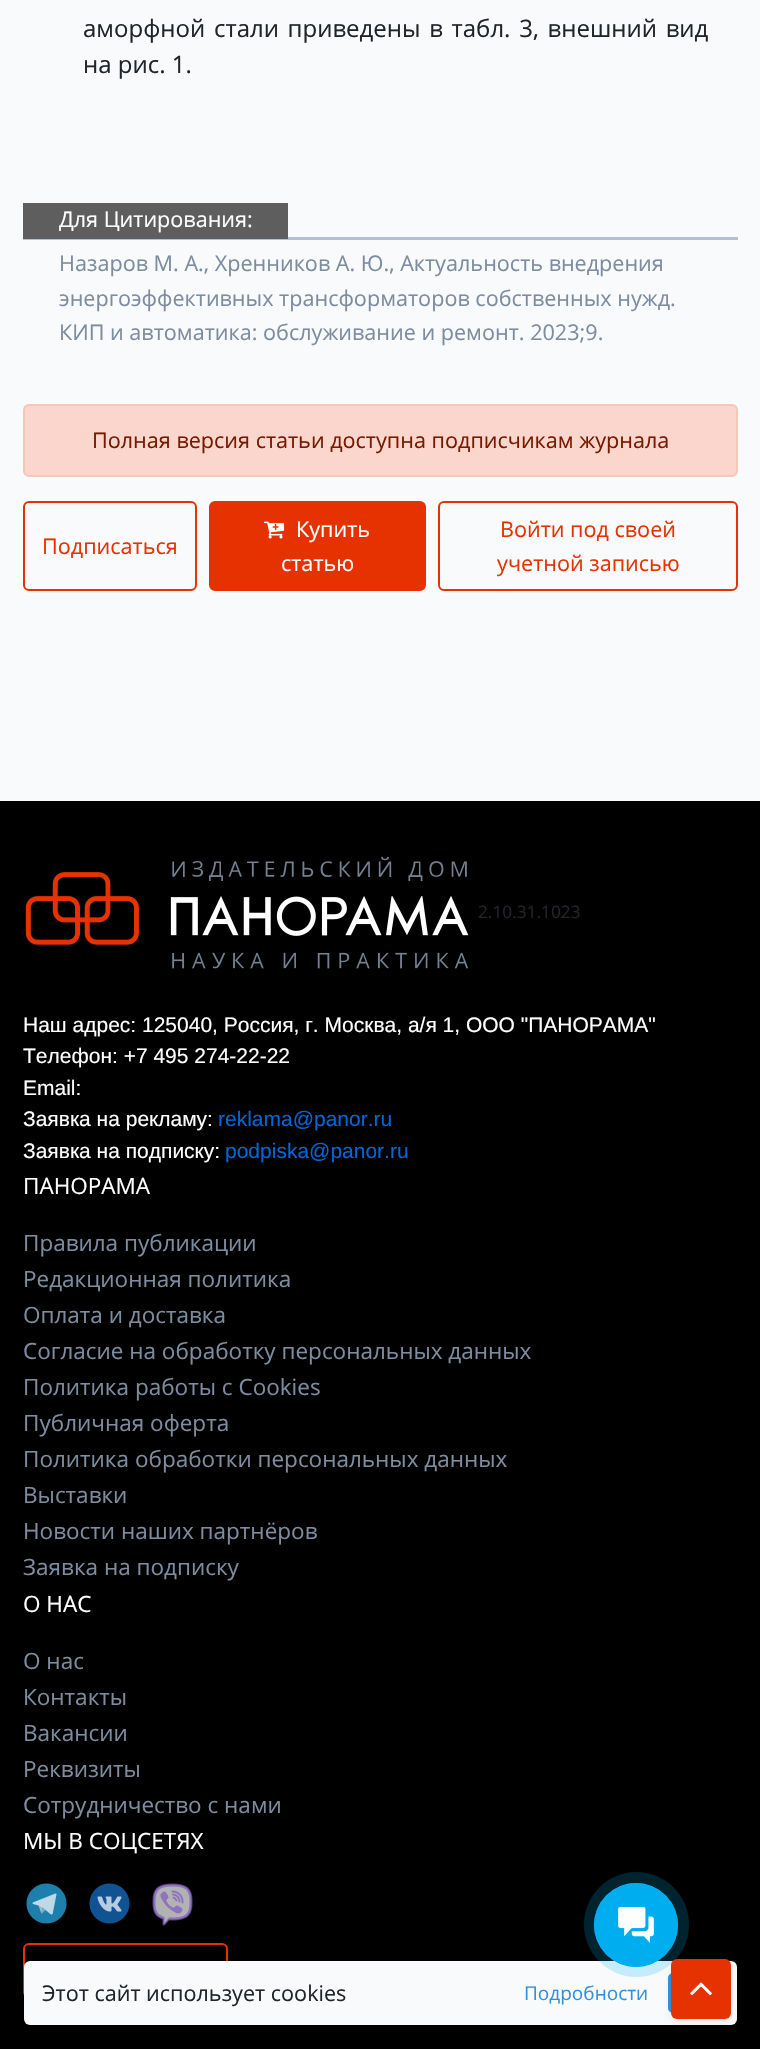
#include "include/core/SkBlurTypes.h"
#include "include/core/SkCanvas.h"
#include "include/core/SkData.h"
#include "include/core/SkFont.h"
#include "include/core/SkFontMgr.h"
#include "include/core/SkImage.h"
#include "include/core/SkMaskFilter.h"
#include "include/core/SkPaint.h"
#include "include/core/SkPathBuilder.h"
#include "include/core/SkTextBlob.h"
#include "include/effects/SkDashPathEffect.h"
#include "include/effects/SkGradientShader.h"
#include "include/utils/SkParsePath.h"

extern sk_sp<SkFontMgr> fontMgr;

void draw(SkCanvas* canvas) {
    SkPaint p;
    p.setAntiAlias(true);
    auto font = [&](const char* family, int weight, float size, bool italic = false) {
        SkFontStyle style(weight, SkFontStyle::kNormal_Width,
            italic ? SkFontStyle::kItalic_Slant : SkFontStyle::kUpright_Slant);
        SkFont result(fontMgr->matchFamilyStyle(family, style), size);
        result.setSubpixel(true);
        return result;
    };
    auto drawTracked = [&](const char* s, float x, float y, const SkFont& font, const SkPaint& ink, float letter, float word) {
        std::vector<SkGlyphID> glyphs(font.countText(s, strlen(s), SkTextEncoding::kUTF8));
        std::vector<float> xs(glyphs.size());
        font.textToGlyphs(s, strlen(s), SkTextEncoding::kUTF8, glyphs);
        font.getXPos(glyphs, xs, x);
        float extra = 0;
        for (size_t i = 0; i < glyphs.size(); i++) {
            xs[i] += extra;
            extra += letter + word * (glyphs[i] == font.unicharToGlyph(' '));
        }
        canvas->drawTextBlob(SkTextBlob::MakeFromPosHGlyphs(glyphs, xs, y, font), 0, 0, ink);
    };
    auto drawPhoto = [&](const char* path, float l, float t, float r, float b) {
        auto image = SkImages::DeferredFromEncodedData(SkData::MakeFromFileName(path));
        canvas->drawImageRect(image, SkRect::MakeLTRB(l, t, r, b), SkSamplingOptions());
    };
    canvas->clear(0xFFF8FAFC);
    auto font1 = font("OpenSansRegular", 400, 24);
    p.setColor(0xFF212529);
    drawTracked("аморфной стали приведены в табл. 3, внешний вид", 83, 37, font1, p, 0, 2.5f);
    canvas->drawString("на рис. 1.", 83, 73, font1, p);
    p.setColor(0xFFB2C1D6);
    canvas->drawRect(SkRect::MakeLTRB(23, 237, 738, 240), p);
    p.setColor(0xFF5F5E5E);
    canvas->drawRect(SkRect::MakeLTRB(23, 203, 288, 239), p);
    auto font2 = font("OpenSansRegular", 400, 21.6f);
    p.setColor(0xFFFFFFFF);
    canvas->drawString("Для Цитирования:", 59, 227, font2, p);
    p.setColor(0xFF7E8C9F);
    {
        const struct { const char* s; float x, y; } items[] = {
            {"Назаров М. А., Хренников А. Ю., Актуальность внедрения", 59, 271},
            {"энергоэффективных трансформаторов собственных нужд.", 59, 306},
            {"КИП и автоматика: обслуживание и ремонт. 2023;9.", 59, 340},
        };
        for (auto [s, x, y] : items) {
            canvas->drawString(s, x, y, font2, p);
        }
    }
    p.setColor(0xFFFAD6CC);
    canvas->drawRoundRect(SkRect::MakeLTRB(24, 405, 737, 476), 5, 5, p);
    p.setStyle(SkPaint::kStroke_Style);
    p.setStrokeWidth(2);
    p.setColor(0xFFF8C6B8);
    canvas->drawRoundRect(SkRect::MakeLTRB(24, 405, 737, 476), 5, 5, p);
    p.setStyle(SkPaint::kFill_Style);
    p.setColor(0xFF781A01);
    canvas->drawString("Полная версия статьи доступна подписчикам журнала", 92, 448, font2, p);
    p.setStyle(SkPaint::kStroke_Style);
    p.setColor(0xFFE63201);
    canvas->drawRoundRect(SkRect::MakeLTRB(24, 502, 196, 590), 5, 5, p);
    p.setStyle(SkPaint::kFill_Style);
    canvas->drawString("Подписаться", 42, 554, font2, p);
    canvas->drawRoundRect(SkRect::MakeLTRB(210, 502, 425, 590), 5, 5, p);
    p.setStyle(SkPaint::kStroke_Style);
    canvas->drawRoundRect(SkRect::MakeLTRB(210, 502, 425, 590), 5, 5, p);
    drawPhoto("media/1.png", 264, 521, 285, 539);
    p.setStyle(SkPaint::kFill_Style);
    p.setColor(0xFFFFFFFF);
    canvas->drawString("Купить", 296, 537, font2, p);
    canvas->drawString("статью", 281, 571, font2, p);
    p.setStyle(SkPaint::kStroke_Style);
    p.setColor(0xFFE63201);
    canvas->drawRoundRect(SkRect::MakeLTRB(439, 502, 737, 590), 5, 5, p);
    p.setStyle(SkPaint::kFill_Style);
    canvas->drawString("Войти под своей", 500, 537, font2, p);
    canvas->drawString("учетной записью", 497, 571, font2, p);
    p.setColor(0xFF000000);
    canvas->drawRect(SkRect::MakeLTRB(0, 801, 760, 2049), p);
    drawPhoto("media/2.png", 25, 856, 469, 969);
    auto font3 = font("OpenSansRegular", 400, 17.25f);
    p.setColor(0xFF212529);
    canvas->drawString("2.10.31.1023", 478, 918, font3, p);
    auto font4 = font("Liberation Sans", 400, 21);
    p.setColor(0xFFFFFFFF);
    {
        const struct { const char* s; float x, y; } items[] = {
            {"Наш адрес: 125040, Россия, г. Москва, а/я 1, ООО \"ПАНОРАМА\"", 23, 1032},
            {"Телефон: +7 495 274-22-22", 23, 1063},
            {"Email:", 23, 1095},
            {"Заявка на рекламу:", 23, 1126},
        };
        for (auto [s, x, y] : items) {
            canvas->drawString(s, x, y, font4, p);
        }
    }
    p.setColor(0xFF0366D6);
    canvas->drawString("reklama@panor.ru", 218, 1126, font4, p);
    p.setColor(0xFFFFFFFF);
    canvas->drawString("Заявка на подписку:", 23, 1158, font4, p);
    p.setColor(0xFF0366D6);
    canvas->drawString("podpiska@panor.ru", 225, 1158, font4, p);
    auto font5 = font("OpenSansRegular", 400, 22.5f);
    p.setColor(0xFFFFFFFF);
    canvas->drawString("ПАНОРАМА", 23, 1194, font5, p);
    p.setColor(0xFF7E8C9F);
    {
        const struct { const char* s; float x, y; } items[] = {
            {"Правила публикации", 23, 1251},
            {"Редакционная политика", 23, 1287},
            {"Оплата и доставка", 23, 1323},
            {"Согласие на обработку персональных данных", 23, 1359},
            {"Политика работы с Cookies", 23, 1395},
            {"Публичная оферта", 23, 1431},
            {"Политика обработки персональных данных", 23, 1467},
            {"Выставки", 23, 1503},
            {"Новости наших партнёров", 23, 1539},
            {"Заявка на подписку", 23, 1575},
        };
        for (auto [s, x, y] : items) {
            canvas->drawString(s, x, y, font5, p);
        }
    }
    p.setColor(0xFFFFFFFF);
    canvas->drawString("О НАС", 23, 1612, font5, p);
    p.setColor(0xFF7E8C9F);
    {
        const struct { const char* s; float x, y; } items[] = {
            {"О нас", 23, 1669},
            {"Контакты", 23, 1705},
            {"Вакансии", 23, 1741},
            {"Реквизиты", 23, 1777},
            {"Сотрудничество с нами", 23, 1813},
        };
        for (auto [s, x, y] : items) {
            canvas->drawString(s, x, y, font5, p);
        }
    }
    p.setColor(0xFFFFFFFF);
    canvas->drawString("МЫ В СОЦСЕТЯХ", 23, 1849, font5, p);
    drawPhoto("media/3.png", 26, 1883, 67, 1924);
    drawPhoto("media/4.png", 89, 1883, 130, 1924);
    drawPhoto("media/5.png", 152, 1883, 193, 1926);
    p.setStyle(SkPaint::kStroke_Style);
    p.setColor(0xFFE63201);
    canvas->drawRoundRect(SkRect::MakeLTRB(24, 1944, 227, 1997), 5, 5, p);
    p.setStyle(SkPaint::kFill_Style);
    p.setColor(0x26000000);
    p.setMaskFilter(SkMaskFilter::MakeBlur(kNormal_SkBlurStyle, 12));
    canvas->drawRoundRect(SkRect::MakeLTRB(24, 1973, 737, 2037), 6, 6, p);
    p.setMaskFilter(nullptr);
    p.setColor(0xFFF8FAFC);
    canvas->drawRoundRect(SkRect::MakeLTRB(24, 1961, 737, 2025), 6, 6, p);
    p.setColor(0xFF3490DC);
    canvas->drawRoundRect(SkRect::MakeLTRB(669, 1974, 718, 2012), 4, 4, p);
    p.setStyle(SkPaint::kStroke_Style);
    canvas->drawRoundRect(SkRect::MakeLTRB(669, 1974, 718, 2012), 4, 4, p);
    p.setStyle(SkPaint::kFill_Style);
    p.setColor(0x12000000);
    p.setMaskFilter(SkMaskFilter::MakeBlur(kNormal_SkBlurStyle, 3));
    canvas->drawRoundRect(SkRect::MakeLTRB(671, 1962, 731, 2022), 6, 6, p);
    p.setMaskFilter(nullptr);
    p.setColor(0xFFE63201);
    canvas->drawRoundRect(SkRect::MakeLTRB(671, 1959, 731, 2019), 6, 6, p);
    p.setColor(0x3300AEEF);
    canvas->drawCircle(636.5f, 1924.5f, 52.5f, p);
    p.setStyle(SkPaint::kStroke_Style);
    p.setStrokeWidth(1);
    p.setColor(0xFF00AEEF);
    canvas->drawCircle(636, 1925, 41.5f, p);
    p.setStyle(SkPaint::kFill_Style);
    canvas->drawCircle(636, 1925, 42, p);
    drawPhoto("media/6.png", 618, 1907, 654, 1943);
    p.setColor(0xFF212529);
    canvas->drawString("Этот сайт использует cookies", 42, 2001, font2, p);
    auto font6 = font("OpenSansRegular", 400, 19);
    p.setColor(0xFF3490DC);
    canvas->drawString("Подробности", 524, 2000, font6, p);
    drawPhoto("media/7.png", 690, 1982, 712, 1996);
}
